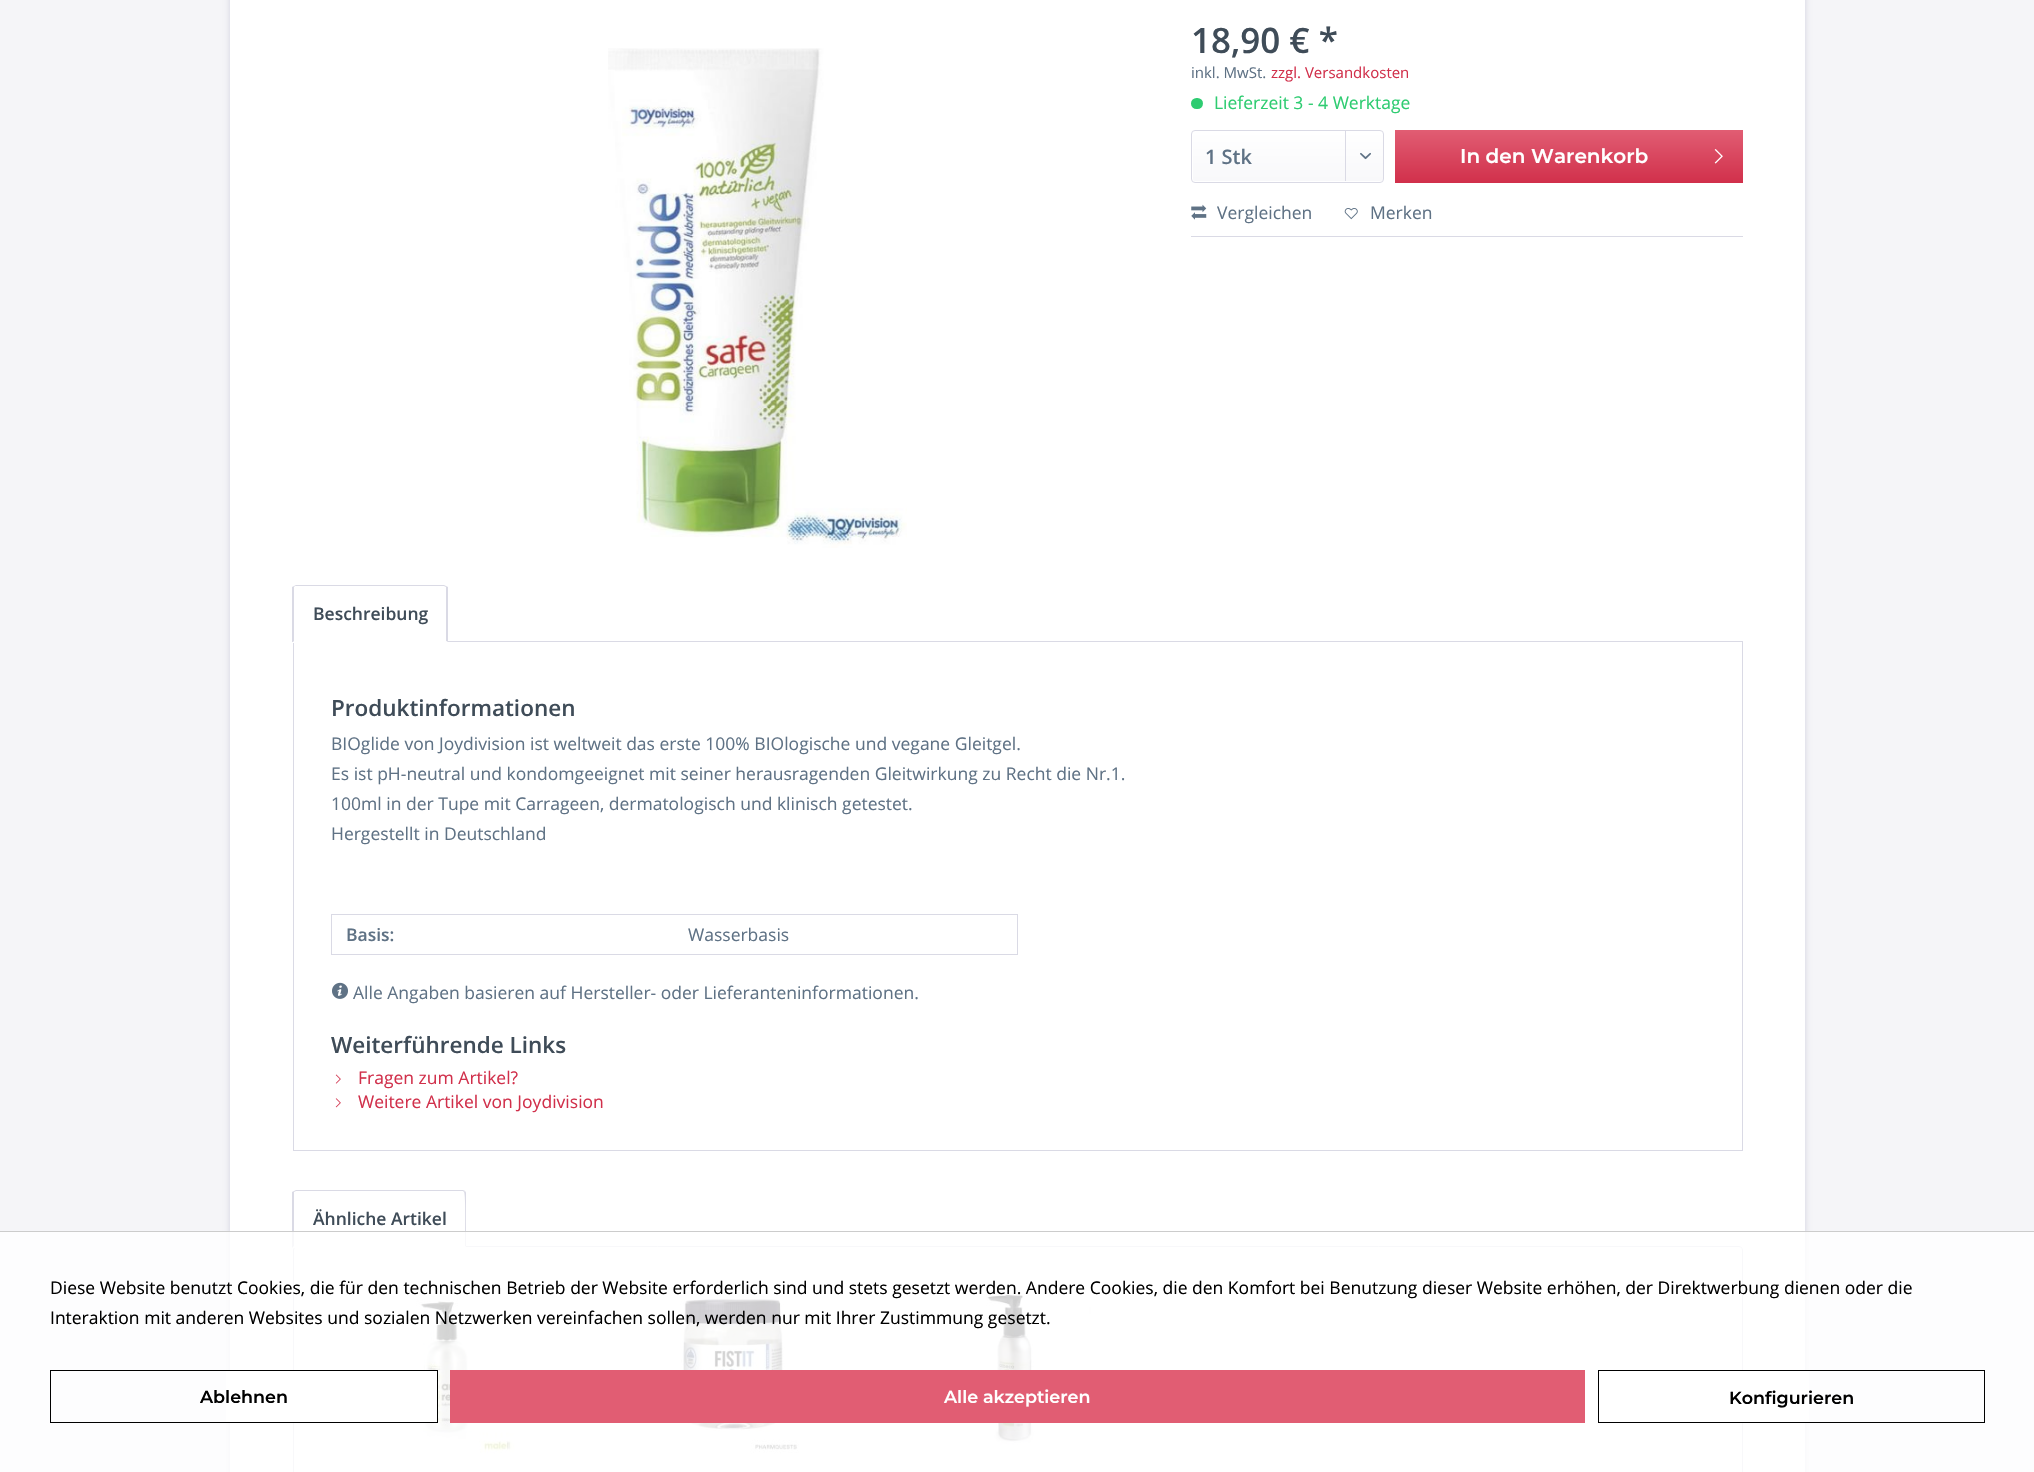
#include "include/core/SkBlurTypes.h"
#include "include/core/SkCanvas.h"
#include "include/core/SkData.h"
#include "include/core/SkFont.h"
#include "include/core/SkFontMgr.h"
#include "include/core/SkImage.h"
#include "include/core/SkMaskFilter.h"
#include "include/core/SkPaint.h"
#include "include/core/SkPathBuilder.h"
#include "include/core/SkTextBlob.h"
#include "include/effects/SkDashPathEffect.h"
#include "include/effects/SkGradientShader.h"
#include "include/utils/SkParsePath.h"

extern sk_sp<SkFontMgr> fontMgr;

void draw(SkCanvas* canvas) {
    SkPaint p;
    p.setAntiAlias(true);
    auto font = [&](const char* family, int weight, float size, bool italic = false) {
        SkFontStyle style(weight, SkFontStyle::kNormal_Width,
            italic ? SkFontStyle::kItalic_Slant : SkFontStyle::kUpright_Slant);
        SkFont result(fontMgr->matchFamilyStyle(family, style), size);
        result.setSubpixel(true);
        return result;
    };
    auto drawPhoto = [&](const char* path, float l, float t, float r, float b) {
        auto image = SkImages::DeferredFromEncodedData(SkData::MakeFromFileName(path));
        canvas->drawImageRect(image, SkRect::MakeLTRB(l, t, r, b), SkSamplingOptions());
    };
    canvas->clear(0xFFF5F5F8);
    p.setColor(0xFFDADAE5);
    p.setMaskFilter(SkMaskFilter::MakeBlur(kNormal_SkBlurStyle, 2.5f));
    canvas->drawRect(SkRect::MakeLTRB(229, -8, 1806, 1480), p);
    p.setMaskFilter(nullptr);
    p.setColor(0xFFFFFFFF);
    canvas->drawRect(SkRect::MakeLTRB(230, 0, 1805, 1472), p);
    drawPhoto("media/1.png", 608, 48, 907, 548);
    auto font1 = font("Open Sans", 600, 35);
    p.setColor(0xFF3F4C58);
    canvas->drawString("18,90 € *", 1191, 53, font1, p);
    auto font2 = font("Open Sans", 400, 15);
    p.setColor(0xFF5F7285);
    canvas->drawString("inkl. MwSt.", 1191, 78, font2, p);
    p.setColor(0xFFD1304B);
    canvas->drawString("zzgl. Versandkosten", 1271, 78, font2, p);
    p.setColor(0xFF2ECC71);
    canvas->drawRoundRect(SkRect::MakeLTRB(1191, 98, 1203, 109), 5.5f, 5.5f, p);
    auto font3 = font("Open Sans", 400, 17.5f);
    canvas->drawString("Lieferzeit 3 - 4 Werktage", 1214, 109, font3, p);
    {
        const SkColor colors[] = {0xFFFFFFFF, 0xFFF8F8FA};
        const float stops[] = {0, 1};
        const SkPoint ends[] = {{1288, 131}, {1288, 181}};
        p.setShader(SkGradientShader::MakeLinear(ends, colors, stops, 2, SkTileMode::kClamp));
        p.setAlpha(255);
    }
    canvas->drawRoundRect(SkRect::MakeLTRB(1193, 131, 1383, 181), 2.5f, 2.5f, p);
    p.setStyle(SkPaint::kStroke_Style);
    p.setStrokeWidth(1);
    p.setShader(nullptr);
    p.setColor(0xFFDADAE5);
    canvas->drawRoundRect(SkRect::MakeLTRB(1191.5f, 130.5f, 1383.5f, 182.5f), 3.5f, 3.5f, p);
    auto font4 = font("Open Sans", 600, 20);
    p.setStyle(SkPaint::kFill_Style);
    p.setColor(0xFF5F7285);
    canvas->drawString("1 Stk", 1205, 164, font4, p);
    p.setColor(0xFFDADAE5);
    canvas->drawRect(SkRect::MakeLTRB(1345, 131, 1346, 181), p);
    drawPhoto("media/2.png", 1360, 152, 1371, 160);
    {
        const SkColor colors[] = {0xFFE15D73, 0xFFD1304B};
        const float stops[] = {0, 1};
        const SkPoint ends[] = {{1569, 130}, {1569, 183}};
        p.setShader(SkGradientShader::MakeLinear(ends, colors, stops, 2, SkTileMode::kClamp));
        p.setAlpha(255);
    }
    canvas->drawRect(SkRect::MakeLTRB(1395, 130, 1743, 183), p);
    auto font5 = font("Montserrat", 600, 20);
    p.setShader(nullptr);
    p.setColor(0xFFFFFFFF);
    canvas->drawString("In den Warenkorb", 1460, 163, font5, p);
    drawPhoto("media/3.png", 1714, 149, 1723, 164);
    p.setColor(0xFFDADAE5);
    canvas->drawRect(SkRect::MakeLTRB(1191, 236, 1743, 237), p);
    drawPhoto("media/4.png", 1191, 204, 1207, 220);
    p.setColor(0xFF5F7285);
    canvas->drawString("Vergleichen", 1217, 219, font3, p);
    drawPhoto("media/5.png", 1344, 208, 1358, 220);
    canvas->drawString("Merken", 1370, 219, font3, p);
    p.setStyle(SkPaint::kStroke_Style);
    p.setColor(0xFFDADAE5);
    canvas->drawRect(SkRect::MakeLTRB(293.5f, 641.5f, 1742.5f, 1150.5f), p);
    p.setStyle(SkPaint::kFill_Style);
    p.setColor(0xFFFFFFFF);
    canvas->drawPath(SkPathBuilder().moveTo(297, 585).lineTo(444, 585).cubicTo(446, 585, 448, 587, 448, 589).lineTo(448, 643).lineTo(293, 643).lineTo(293, 589).cubicTo(293, 587, 295, 585, 297, 585).close().detach(), p);
    p.setColor(0xFFDADAE5);
    canvas->drawPath(SkPathBuilder().moveTo(296, 585).lineTo(294, 586).lineTo(294, 587).lineTo(295, 586).lineTo(395, 586).lineTo(444, 586).lineTo(446, 587).lineTo(446, 586).lineTo(444, 585).close().detach(), p);
    canvas->drawPath(SkPathBuilder().moveTo(448, 642).lineTo(446, 641).lineTo(446, 589).lineTo(446, 587).lineTo(446, 586).lineTo(448, 587).close().detach(), p);
    p.setColor(0xFFFFFFFF);
    canvas->drawPath(SkPathBuilder().moveTo(447, 642).lineTo(293, 642).lineTo(294, 641).lineTo(446, 641).close().detach(), p);
    p.setColor(0xFFDADAE5);
    canvas->drawPath(SkPathBuilder().moveTo(292, 587).lineTo(294, 586).lineTo(294, 587).lineTo(294, 589).lineTo(294, 641).lineTo(293, 642).lineTo(292, 642).close().detach(), p);
    auto font6 = font("Open Sans", 600, 17.5f);
    p.setColor(0xFF3F4C58);
    canvas->drawString("Beschreibung", 313, 620, font6, p);
    auto font7 = font("Open Sans", 600, 22.5f);
    canvas->drawString("Produktinformationen", 331, 716, font7, p);
    p.setColor(0xFF5F7285);
    {
        const struct { const char* s; float x, y; } items[] = {
            {"BIOglide von Joydivision ist weltweit das erste 100% BIOlogische und vegane Gleitgel.", 331, 750},
            {"Es ist pH-neutral und kondomgeeignet mit seiner herausragenden Gleitwirkung zu Recht die Nr.1.", 331, 780},
            {"100ml in der Tupe mit Carrageen, dermatologisch und klinisch getestet.", 331, 810},
            {"Hergestellt in Deutschland", 331, 840},
        };
        for (auto [s, x, y] : items) {
            canvas->drawString(s, x, y, font3, p);
        }
    }
    p.setStyle(SkPaint::kStroke_Style);
    p.setColor(0xFFDADAE5);
    canvas->drawRect(SkRect::MakeLTRB(331.5f, 914.5f, 1017.5f, 954.5f), p);
    p.setStyle(SkPaint::kFill_Style);
    p.setColor(0xFF5F7285);
    canvas->drawString("Basis:", 346, 941, font6, p);
    canvas->drawString("Wasserbasis", 688, 941, font3, p);
    drawPhoto("media/6.png", 332, 982, 348, 999);
    canvas->drawString("Alle Angaben basieren auf Hersteller- oder Lieferanteninformationen.", 353, 999, font3, p);
    p.setColor(0xFF3F4C58);
    canvas->drawString("Weiterführende Links", 331, 1053, font7, p);
    drawPhoto("media/7.png", 335, 1074, 341, 1084);
    p.setColor(0xFFD1304B);
    canvas->drawString("Fragen zum Artikel?", 358, 1084, font3, p);
    drawPhoto("media/8.png", 335, 1098, 341, 1108);
    canvas->drawString("Weitere Artikel von Joydivision", 358, 1108, font3, p);
    p.setStyle(SkPaint::kStroke_Style);
    p.setColor(0xFFDADAE5);
    canvas->drawRoundRect(SkRect::MakeLTRB(293.5f, 1246.5f, 1742.5f, 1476.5f), 3.5f, 3.5f, p);
    p.setStyle(SkPaint::kFill_Style);
    p.setColor(0xFFFFFFFF);
    canvas->drawPath(SkPathBuilder().moveTo(297, 1190).lineTo(462, 1190).cubicTo(464, 1190, 466, 1192, 466, 1194).lineTo(466, 1248).lineTo(293, 1248).lineTo(293, 1194).cubicTo(293, 1192, 295, 1190, 297, 1190).close().detach(), p);
    p.setColor(0xFFDADAE5);
    canvas->drawPath(SkPathBuilder().moveTo(296, 1190).lineTo(294, 1191).lineTo(294, 1192).lineTo(296, 1191).lineTo(463, 1191).lineTo(464, 1192).lineTo(465, 1191).cubicTo(464, 1190, 463, 1190, 462, 1190).close().detach(), p);
    canvas->drawPath(SkPathBuilder().moveTo(465, 1191).cubicTo(466, 1192, 466, 1193, 466, 1194).lineTo(466, 1247).lineTo(465, 1246).cubicTo(465, 1240, 466, 1194, 464, 1192).close().detach(), p);
    p.setColor(0xFFFFFFFF);
    canvas->drawPath(SkPathBuilder().moveTo(466, 1247).lineTo(292, 1248).lineTo(294, 1246).lineTo(465, 1246).close().detach(), p);
    p.setColor(0xFFDADAE5);
    canvas->drawPath(SkPathBuilder().moveTo(292, 1248).lineTo(292, 1192).lineTo(294, 1191).lineTo(294, 1192).lineTo(294, 1194).lineTo(294, 1246).close().detach(), p);
    p.setColor(0xFF3F4C58);
    canvas->drawString("Ähnliche Artikel", 313, 1225, font6, p);
    drawPhoto("media/9.png", 413, 1299, 515, 1454);
    drawPhoto("media/10.png", 680, 1299, 799, 1454);
    drawPhoto("media/11.png", 986, 1292, 1091, 1445);
    p.setColor(0xCCFFFFFF);
    canvas->drawRect(SkRect::MakeLTRB(0, 1232, 2034, 1472), p);
    p.setColor(0xFFCCCCCC);
    canvas->drawRect(SkRect::MakeLTRB(0, 1231, 2034, 1232), p);
    p.setColor(0xFF000000);
    canvas->drawString("Diese Website benutzt Cookies, die für den technischen Betrieb der Website erforderlich sind und stets gesetzt werden. Andere Cookies, die den Komfort bei Benutzung dieser Website erhöhen, der Direktwerbung dienen oder die", 50, 1294, font3, p);
    canvas->drawString("Interaktion mit anderen Websites und sozialen Netzwerken vereinfachen sollen, werden nur mit Ihrer Zustimmung gesetzt.", 50, 1324, font3, p);
    p.setColor(0xFFFFFFFF);
    canvas->drawRect(SkRect::MakeLTRB(226, 1371, 437, 1422), p);
    p.setStyle(SkPaint::kStroke_Style);
    p.setColor(0xFF000000);
    canvas->drawRect(SkRect::MakeLTRB(50.5f, 1370.5f, 437.5f, 1422.5f), p);
    auto font8 = font("Montserrat", 600, 17.5f);
    p.setStyle(SkPaint::kFill_Style);
    canvas->drawString("Ablehnen", 200, 1403, font8, p);
    p.setColor(0xFFE15D73);
    canvas->drawRect(SkRect::MakeLTRB(450, 1370, 1585, 1423), p);
    p.setColor(0xFFFFFFFF);
    canvas->drawString("Alle akzeptieren", 944, 1403, font8, p);
    canvas->drawRect(SkRect::MakeLTRB(1742, 1371, 1809, 1422), p);
    p.setStyle(SkPaint::kStroke_Style);
    p.setColor(0xFF000000);
    canvas->drawRect(SkRect::MakeLTRB(1598.5f, 1370.5f, 1984.5f, 1422.5f), p);
    p.setStyle(SkPaint::kFill_Style);
    canvas->drawString("Konfigurieren", 1729, 1404, font8, p);
}
